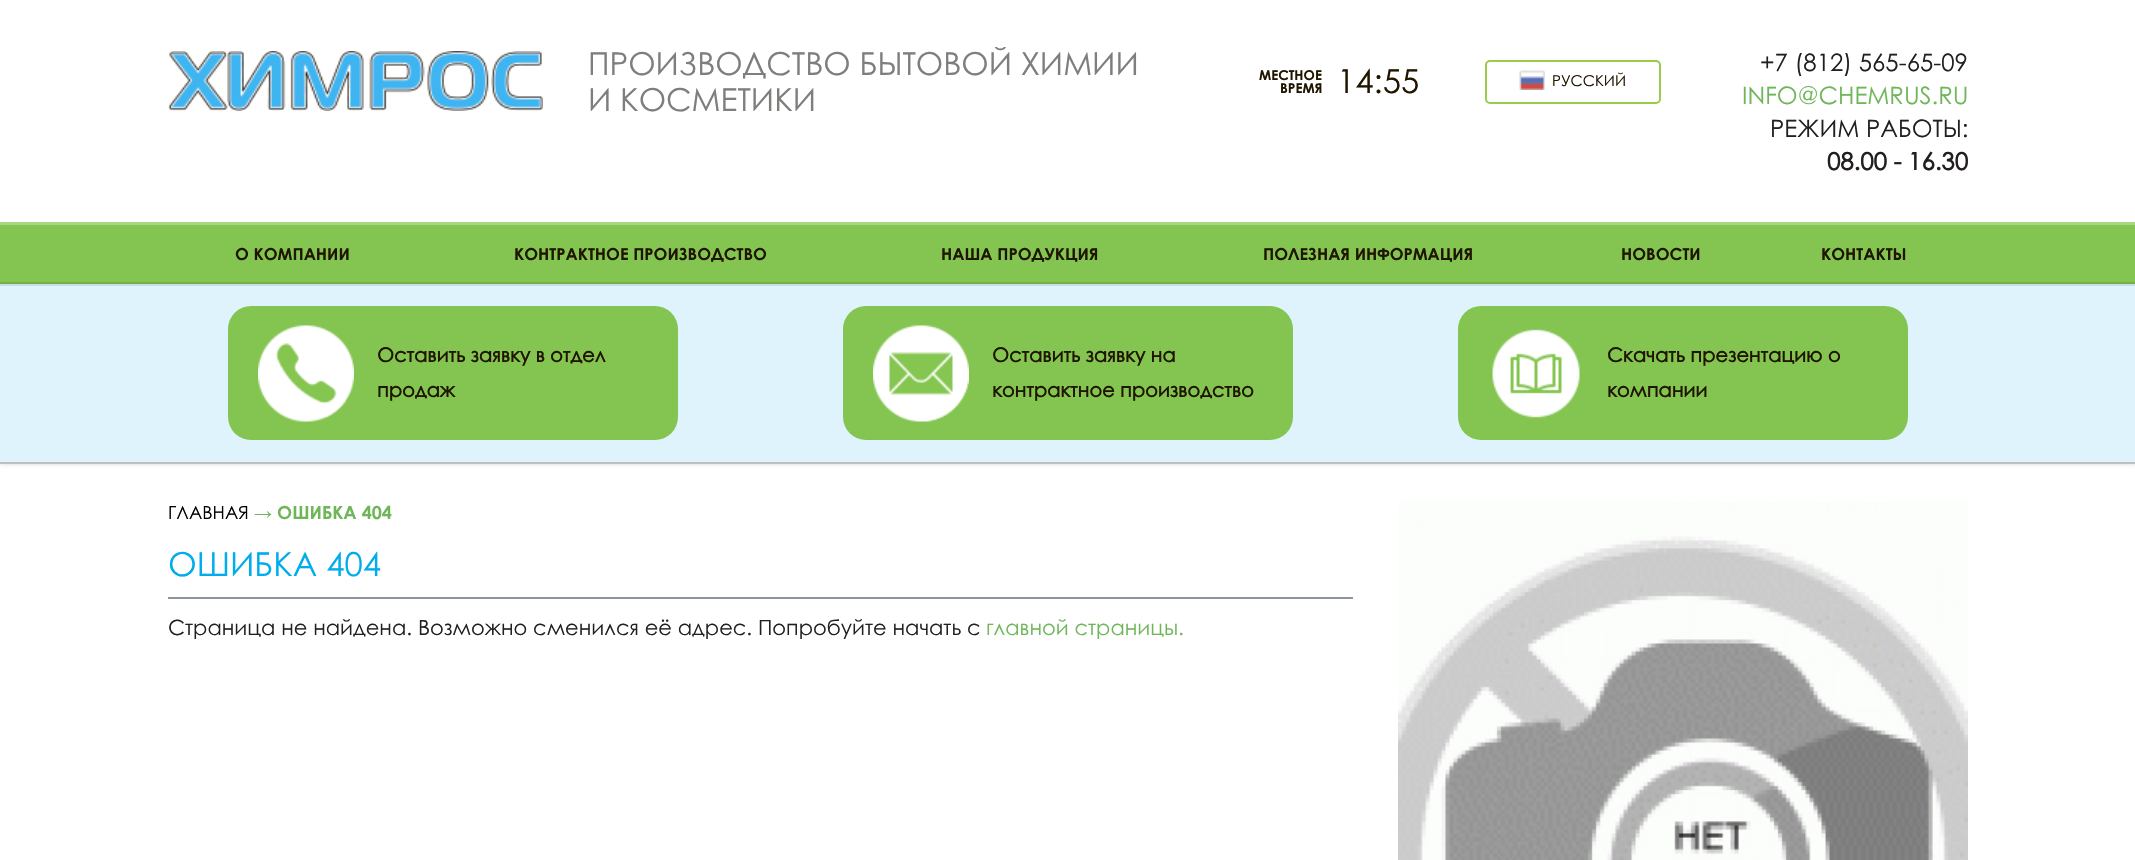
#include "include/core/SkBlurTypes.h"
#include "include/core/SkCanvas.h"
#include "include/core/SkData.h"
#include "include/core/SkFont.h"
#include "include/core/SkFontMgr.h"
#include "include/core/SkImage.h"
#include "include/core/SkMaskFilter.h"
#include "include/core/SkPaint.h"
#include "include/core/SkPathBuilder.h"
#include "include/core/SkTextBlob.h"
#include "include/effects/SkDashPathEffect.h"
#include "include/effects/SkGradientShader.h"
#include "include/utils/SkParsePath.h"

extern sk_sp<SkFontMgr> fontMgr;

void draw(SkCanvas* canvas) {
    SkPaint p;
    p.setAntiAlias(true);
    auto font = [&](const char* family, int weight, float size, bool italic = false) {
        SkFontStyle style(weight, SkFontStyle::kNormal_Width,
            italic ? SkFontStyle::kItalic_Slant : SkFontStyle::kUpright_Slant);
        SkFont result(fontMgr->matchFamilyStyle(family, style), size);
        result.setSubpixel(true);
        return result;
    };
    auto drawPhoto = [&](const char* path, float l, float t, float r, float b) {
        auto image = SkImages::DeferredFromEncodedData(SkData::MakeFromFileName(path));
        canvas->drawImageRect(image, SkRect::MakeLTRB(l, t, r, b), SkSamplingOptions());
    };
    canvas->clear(0xFFFFFFFF);
    drawPhoto("media/1.png", 168, 51, 543, 111);
    auto font1 = font("Century Gothic", 400, 31.5f);
    p.setColor(0xFF7F7E7C);
    canvas->drawString("ПРОИЗВОДСТВО БЫТОВОЙ ХИМИИ", 588, 75, font1, p);
    canvas->drawString("И КОСМЕТИКИ", 588, 111, font1, p);
    auto font2 = font("Century Gothic", 700, 13.5f);
    p.setColor(0xFF201600);
    canvas->drawString("МЕСТНОЕ", 1259, 80, font2, p);
    canvas->drawString("ВРЕМЯ", 1280, 93, font2, p);
    auto font3 = font("Century Gothic", 400, 33);
    canvas->drawString("14:55", 1337, 93, font3, p);
    p.setStyle(SkPaint::kStroke_Style);
    p.setStrokeWidth(2);
    p.setColor(0xFF99CB4C);
    canvas->drawRoundRect(SkRect::MakeLTRB(1486, 61, 1660, 103), 4, 4, p);
    drawPhoto("media/2.png", 1519, 70, 1545, 90);
    auto font4 = font("Century Gothic", 400, 15);
    p.setStyle(SkPaint::kFill_Style);
    p.setColor(0xFF201600);
    canvas->drawString("РУССКИЙ", 1552, 86, font4, p);
    auto font5 = font("Century Gothic", 400, 24);
    p.setColor(0xFF231F20);
    canvas->drawString("+7 (812) 565-65-09", 1760, 71, font5, p);
    p.setColor(0xFF6FB65A);
    canvas->drawString("INFO@CHEMRUS.RU", 1742, 104, font5, p);
    p.setColor(0xFF231F20);
    canvas->drawString("РЕЖИМ РАБОТЫ:", 1770, 137, font5, p);
    auto font6 = font("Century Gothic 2", 700, 24);
    canvas->drawString("08.00 - 16.30", 1827, 170, font6, p);
    {
        const struct { float l, t, r, b; SkColor color; } items[] = {
            {0, 225, 2135, 282, 0xFF84C551},
            {0, 282, 2135, 284, 0xFF77B149},
            {0, 222, 2135, 225, 0xFFA9D685},
        };
        for (auto [l, t, r, b, color] : items) {
            p.setColor(color);
            canvas->drawRect(SkRect::MakeLTRB(l, t, r, b), p);
        }
    }
    auto font7 = font("Century Gothic", 700, 16.5f);
    p.setColor(0xFF201600);
    {
        const struct { const char* s; float x, y; } items[] = {
            {"О КОМПАНИИ", 235, 260},
            {"КОНТРАКТНОЕ ПРОИЗВОДСТВО", 514, 260},
            {"НАША ПРОДУКЦИЯ", 941, 260},
            {"ПОЛЕЗНАЯ ИНФОРМАЦИЯ", 1263, 260},
            {"НОВОСТИ", 1621, 260},
            {"КОНТАКТЫ", 1821, 260},
        };
        for (auto [s, x, y] : items) {
            canvas->drawString(s, x, y, font7, p);
        }
    }
    p.setColor(0x1A000000);
    p.setMaskFilter(SkMaskFilter::MakeBlur(kNormal_SkBlurStyle, 1.5f));
    canvas->drawRect(SkRect::MakeLTRB(0, 285, 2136, 465), p);
    p.setMaskFilter(nullptr);
    {
        const struct { float l, t, r, b; SkColor color; } items[] = {
            {0, 286, 2135, 462, 0xFFDFF3FC},
            {0, 284, 2135, 286, 0xFFC9DBE3},
            {0, 462, 2135, 464, 0xFFBDC0C2},
        };
        for (auto [l, t, r, b, color] : items) {
            p.setColor(color);
            canvas->drawRect(SkRect::MakeLTRB(l, t, r, b), p);
        }
    }
    p.setColor(0xFF84C551);
    canvas->drawRoundRect(SkRect::MakeLTRB(228, 306, 678, 440), 23, 23, p);
    drawPhoto("media/3.png", 258, 325, 354, 422);
    auto font8 = font("Century Gothic 2", 700, 19.5f);
    p.setColor(0xFF201600);
    canvas->drawString("Оставить заявку в отдел", 377, 362, font8, p);
    canvas->drawString("продаж", 377, 397, font8, p);
    p.setColor(0xFF84C551);
    canvas->drawRoundRect(SkRect::MakeLTRB(843, 306, 1293, 440), 23, 23, p);
    drawPhoto("media/4.png", 873, 325, 969, 422);
    p.setColor(0xFF201600);
    canvas->drawString("Оставить заявку на", 992, 362, font8, p);
    canvas->drawString("контрактное производство", 992, 397, font8, p);
    p.setColor(0xFF84C551);
    canvas->drawRoundRect(SkRect::MakeLTRB(1458, 306, 1908, 440), 23, 23, p);
    drawPhoto("media/5.png", 1492, 329, 1580, 418);
    p.setColor(0xFF201600);
    canvas->drawString("Скачать презентацию о", 1607, 362, font8, p);
    canvas->drawString("компании", 1607, 397, font8, p);
    auto font9 = font("Century Gothic", 400, 18);
    p.setColor(0xFF000000);
    canvas->drawString("ГЛАВНАЯ", 168, 519, font9, p);
    auto font10 = font("Century Gothic", 700, 18);
    p.setColor(0xFF6FB65A);
    canvas->drawString("→ ОШИБКА 404", 254, 519, font10, p);
    p.setColor(0xFF8D94A0);
    canvas->drawRect(SkRect::MakeLTRB(168, 597, 1353, 599), p);
    p.setColor(0xFF00ACEC);
    canvas->drawString("ОШИБКА 404", 168, 576, font3, p);
    auto font11 = font("Century Gothic", 400, 21);
    p.setColor(0xFF231F20);
    canvas->drawString("Страница не найдена. Возможно сменился её адрес. Попробуйте начать с", 168, 635, font11, p);
    p.setColor(0xFF6FB65A);
    canvas->drawString("главной страницы.", 986, 635, font11, p);
    drawPhoto("media/6.png", 1398, 501, 1968, 860);
}
